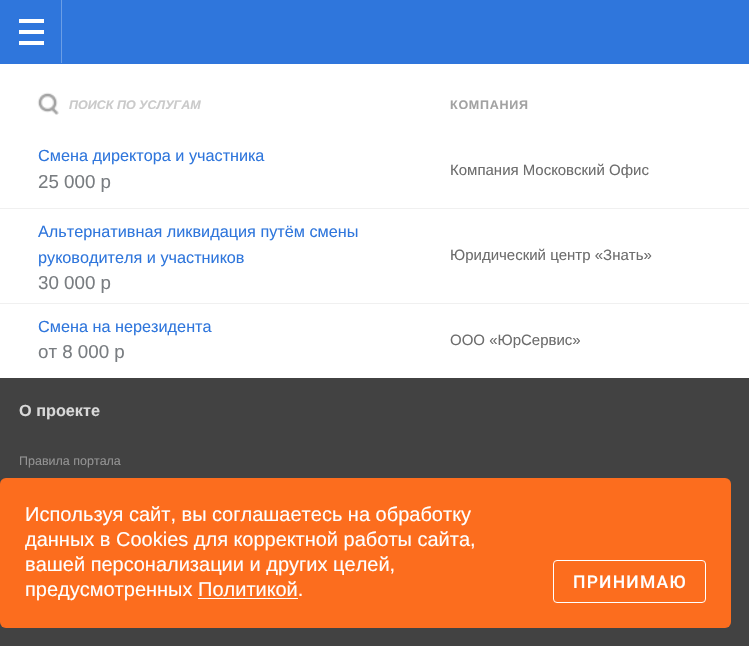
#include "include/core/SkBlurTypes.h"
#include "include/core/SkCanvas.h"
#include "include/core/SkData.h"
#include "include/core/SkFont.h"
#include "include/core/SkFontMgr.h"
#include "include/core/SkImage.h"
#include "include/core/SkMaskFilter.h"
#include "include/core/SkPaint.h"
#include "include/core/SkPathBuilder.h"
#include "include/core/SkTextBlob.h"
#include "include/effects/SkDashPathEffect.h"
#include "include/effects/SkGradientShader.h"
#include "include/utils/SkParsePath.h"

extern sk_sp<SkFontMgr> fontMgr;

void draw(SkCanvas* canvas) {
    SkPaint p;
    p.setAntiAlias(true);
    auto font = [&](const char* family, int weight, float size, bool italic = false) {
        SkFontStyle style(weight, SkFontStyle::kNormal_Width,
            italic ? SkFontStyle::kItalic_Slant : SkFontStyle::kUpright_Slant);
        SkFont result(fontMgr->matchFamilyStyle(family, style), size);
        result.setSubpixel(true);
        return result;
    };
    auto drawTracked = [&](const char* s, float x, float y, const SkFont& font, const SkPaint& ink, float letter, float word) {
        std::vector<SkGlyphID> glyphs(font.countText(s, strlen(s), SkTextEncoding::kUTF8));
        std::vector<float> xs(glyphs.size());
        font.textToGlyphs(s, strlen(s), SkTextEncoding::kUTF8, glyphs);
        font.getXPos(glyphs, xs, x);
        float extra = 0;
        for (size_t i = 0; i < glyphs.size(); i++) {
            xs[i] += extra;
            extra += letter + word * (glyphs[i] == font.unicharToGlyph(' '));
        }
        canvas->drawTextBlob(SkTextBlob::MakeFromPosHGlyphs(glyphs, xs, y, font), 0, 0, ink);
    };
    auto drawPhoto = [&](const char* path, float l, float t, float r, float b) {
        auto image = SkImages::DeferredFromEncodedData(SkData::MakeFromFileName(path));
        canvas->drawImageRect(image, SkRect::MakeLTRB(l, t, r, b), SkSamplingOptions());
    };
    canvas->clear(0xFFFFFFFF);
    {
        const struct { float l, t, r, b; SkColor color; } items[] = {
            {0, 0, 749, 64, 0xFF2F76DC},
            {61, 0, 62, 63, 0xFF6B9EE6},
            {19, 19, 44, 23, 0xFFFFFFFF},
            {19, 30, 44, 34, 0xFFFFFFFF},
            {19, 41, 44, 45, 0xFFFFFFFF},
        };
        for (auto [l, t, r, b, color] : items) {
            p.setColor(color);
            canvas->drawRect(SkRect::MakeLTRB(l, t, r, b), p);
        }
    }
    drawPhoto("media/1.png", 37, 92, 59, 115);
    auto font1 = font("Liberation Sans", 700, 12.5f, true);
    p.setColor(0xFFCACACA);
    canvas->drawString("ПОИСК ПО УСЛУГАМ", 69, 109, font1, p);
    auto font2 = font("Liberation Sans", 700, 12.5f);
    p.setColor(0xFFA2A2A2);
    drawTracked("КОМПАНИЯ", 450, 109, font2, p, 0.75f, 0);
    auto font3 = font("Liberation Sans", 400, 16.25f);
    p.setColor(0xFF2F76DC);
    canvas->drawString("Смена директора и участника", 38, 161, font3, p);
    auto font4 = font("Liberation Sans", 400, 18.75f);
    p.setColor(0xFF797D81);
    canvas->drawString("25 000 р", 38, 188, font4, p);
    auto font5 = font("Liberation Sans", 400, 15);
    p.setColor(0xFF6D6D6D);
    canvas->drawString("Компания Московский Офис", 450, 175, font5, p);
    p.setColor(0xFFF0F0F0);
    canvas->drawRect(SkRect::MakeLTRB(0, 208, 749, 209), p);
    p.setColor(0xFF2F76DC);
    canvas->drawString("Альтернативная ликвидация путём смены", 38, 237, font3, p);
    canvas->drawString("руководителя и участников", 38, 263, font3, p);
    p.setColor(0xFF797D81);
    canvas->drawString("30 000 р", 38, 289, font4, p);
    p.setColor(0xFF6D6D6D);
    canvas->drawString("Юридический центр «Знать»", 450, 260, font5, p);
    p.setColor(0xFFF0F0F0);
    canvas->drawRect(SkRect::MakeLTRB(0, 303, 749, 304), p);
    p.setColor(0xFF2F76DC);
    canvas->drawString("Смена на нерезидента", 38, 332, font3, p);
    p.setColor(0xFF797D81);
    canvas->drawString("от 8 000 р", 38, 358, font4, p);
    p.setColor(0xFF6D6D6D);
    canvas->drawString("ООО «ЮрСервис»", 450, 345, font5, p);
    p.setColor(0xFF424242);
    canvas->drawRect(SkRect::MakeLTRB(0, 378, 749, 646), p);
    auto font6 = font("Liberation Sans", 700, 16.25f);
    p.setColor(0xFFD8D8D8);
    canvas->drawString("О проекте", 19, 416, font6, p);
    auto font7 = font("Liberation Sans", 400, 12.5f);
    p.setColor(0xFF939393);
    canvas->drawString("Правила портала", 19, 465, font7, p);
    p.setColor(0xFFFC6D1E);
    canvas->drawRoundRect(SkRect::MakeLTRB(0, 478, 731, 628), 6, 6, p);
    auto font8 = font("Liberation Sans", 400, 20);
    p.setColor(0xFFFFFFFF);
    {
        const struct { const char* s; float x, y; } items[] = {
            {"Используя сайт, вы соглашаетесь на обработку", 25, 521},
            {"данных в Cookies для корректной работы сайта,", 25, 546},
            {"вашей персонализации и других целей,", 25, 571},
            {"предусмотренных Политикой.", 25, 596},
        };
        for (auto [s, x, y] : items) {
            canvas->drawString(s, x, y, font8, p);
        }
    }
    canvas->drawRect(SkRect::MakeLTRB(198, 598, 298, 599), p);
    p.setStyle(SkPaint::kStroke_Style);
    p.setStrokeWidth(1);
    canvas->drawRoundRect(SkRect::MakeLTRB(553.5f, 560.5f, 705.5f, 602.5f), 3.5f, 3.5f, p);
    auto font9 = font("Roboto", 500, 17.5f);
    p.setStyle(SkPaint::kFill_Style);
    drawTracked("ПРИНИМАЮ", 573, 588, font9, p, 1.25f, 0);
}
